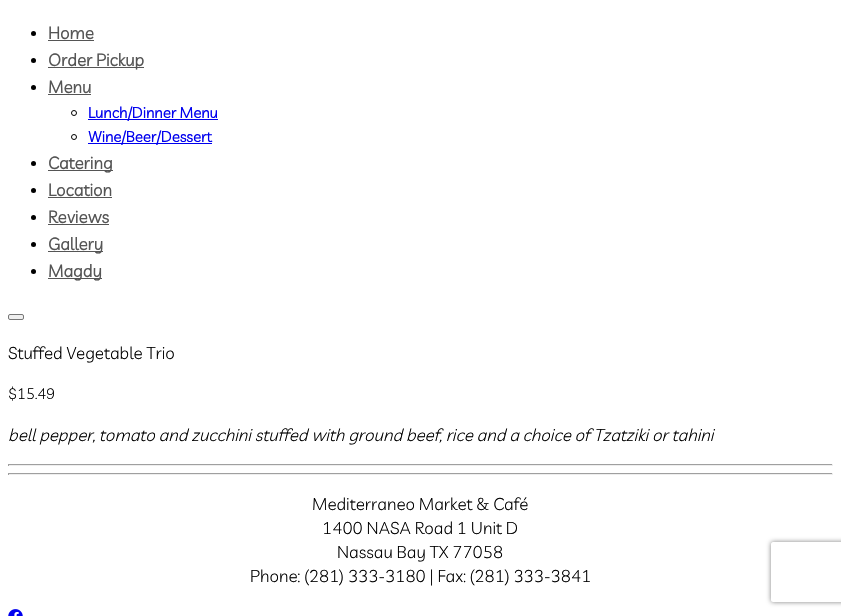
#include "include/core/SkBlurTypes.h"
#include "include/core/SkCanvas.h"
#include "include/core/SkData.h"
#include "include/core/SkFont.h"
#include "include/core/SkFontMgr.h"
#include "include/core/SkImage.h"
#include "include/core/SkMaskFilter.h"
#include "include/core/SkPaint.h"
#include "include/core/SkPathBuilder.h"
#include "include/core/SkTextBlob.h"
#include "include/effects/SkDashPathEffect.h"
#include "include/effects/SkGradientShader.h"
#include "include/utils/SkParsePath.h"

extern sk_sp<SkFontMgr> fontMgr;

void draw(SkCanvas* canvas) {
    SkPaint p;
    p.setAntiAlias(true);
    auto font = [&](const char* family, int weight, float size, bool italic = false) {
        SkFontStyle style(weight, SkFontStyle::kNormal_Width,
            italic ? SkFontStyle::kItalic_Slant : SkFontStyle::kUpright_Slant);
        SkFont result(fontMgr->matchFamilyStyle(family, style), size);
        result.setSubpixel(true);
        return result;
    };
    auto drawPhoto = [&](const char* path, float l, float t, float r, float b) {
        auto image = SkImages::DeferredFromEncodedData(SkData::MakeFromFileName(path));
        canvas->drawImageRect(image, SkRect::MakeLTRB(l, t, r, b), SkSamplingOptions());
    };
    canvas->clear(0xFFFFFFFF);
    p.setColor(0xFF000000);
    canvas->drawCircle(33.5f, 33.5f, 2.5f, p);
    auto font1 = font("Livvic", 700, 17);
    p.setColor(0xFF555555);
    canvas->drawString("Home", 48, 39, font1, p);
    canvas->drawRect(SkRect::MakeLTRB(48, 40, 94, 41), p);
    p.setColor(0xFF000000);
    canvas->drawCircle(33.5f, 60.5f, 2.5f, p);
    p.setColor(0xFF555555);
    canvas->drawRect(SkRect::MakeLTRB(48, 67, 144, 68), p);
    canvas->drawString("Order Pickup", 48, 66, font1, p);
    p.setColor(0xFF000000);
    canvas->drawCircle(33.5f, 87.5f, 2.5f, p);
    p.setColor(0xFF555555);
    canvas->drawString("Menu", 48, 93, font1, p);
    canvas->drawRect(SkRect::MakeLTRB(48, 94, 91, 95), p);
    p.setStyle(SkPaint::kStroke_Style);
    p.setStrokeWidth(1);
    p.setColor(0xFF000000);
    canvas->drawCircle(74, 113, 2.5f, p);
    p.setStyle(SkPaint::kFill_Style);
    p.setColor(0xFF0000EE);
    canvas->drawRect(SkRect::MakeLTRB(88, 119, 218, 120), p);
    auto font2 = font("Livvic", 700, 15);
    canvas->drawString("Lunch/Dinner Menu", 88, 118, font2, p);
    p.setStyle(SkPaint::kStroke_Style);
    p.setColor(0xFF000000);
    canvas->drawCircle(74, 137, 2.5f, p);
    p.setStyle(SkPaint::kFill_Style);
    p.setColor(0xFF0000EE);
    canvas->drawRect(SkRect::MakeLTRB(88, 143, 212, 144), p);
    canvas->drawString("Wine/Beer/Dessert", 88, 142, font2, p);
    p.setColor(0xFF000000);
    canvas->drawCircle(33.5f, 163.5f, 2.5f, p);
    p.setColor(0xFF555555);
    canvas->drawRect(SkRect::MakeLTRB(48, 170, 113, 171), p);
    canvas->drawString("Catering", 48, 169, font1, p);
    p.setColor(0xFF000000);
    canvas->drawCircle(33.5f, 190.5f, 2.5f, p);
    p.setColor(0xFF555555);
    canvas->drawString("Location", 48, 196, font1, p);
    canvas->drawRect(SkRect::MakeLTRB(48, 197, 112, 198), p);
    p.setColor(0xFF000000);
    canvas->drawCircle(33.5f, 217.5f, 2.5f, p);
    p.setColor(0xFF555555);
    canvas->drawString("Reviews", 48, 223, font1, p);
    canvas->drawRect(SkRect::MakeLTRB(48, 224, 109, 225), p);
    p.setColor(0xFF000000);
    canvas->drawCircle(33.5f, 244.5f, 2.5f, p);
    p.setColor(0xFF555555);
    canvas->drawRect(SkRect::MakeLTRB(48, 251, 103, 252), p);
    canvas->drawString("Gallery", 48, 250, font1, p);
    p.setColor(0xFF000000);
    canvas->drawCircle(33.5f, 271.5f, 2.5f, p);
    p.setColor(0xFF555555);
    canvas->drawRect(SkRect::MakeLTRB(48, 278, 102, 279), p);
    canvas->drawString("Magdy", 48, 277, font1, p);
    p.setColor(0xFFEFEFEF);
    canvas->drawRoundRect(SkRect::MakeLTRB(8.5f, 314.5f, 23.5f, 319.5f), 1.5f, 1.5f, p);
    p.setStyle(SkPaint::kStroke_Style);
    p.setColor(0xFF767676);
    canvas->drawRoundRect(SkRect::MakeLTRB(8.5f, 314.5f, 23.5f, 319.5f), 1.5f, 1.5f, p);
    auto font3 = font("Livvic", 300, 17);
    p.setStyle(SkPaint::kFill_Style);
    p.setColor(0xFF000000);
    canvas->drawString("Stuffed Vegetable Trio", 8, 359, font3, p);
    auto font4 = font("Livvic", 300, 15);
    canvas->drawString("$15.49", 8, 399, font4, p);
    auto font5 = font("Livvic", 300, 17, true);
    canvas->drawString("bell pepper, tomato and zucchini stuffed with ground beef, rice and a choice of Tzatziki or tahini", 8, 441, font5, p);
    {
        const struct { float l, t, r, b; SkColor color; } items[] = {
            {8, 464, 833, 465, 0xFF9F9F9F},
            {832, 464, 833, 466, 0xFFEEEEEE},
            {8, 465, 833, 466, 0xFFEEEEEE},
            {8, 464, 9, 466, 0xFF9F9F9F},
            {8, 473, 833, 474, 0xFF9F9F9F},
            {832, 473, 833, 475, 0xFFEEEEEE},
            {8, 474, 833, 475, 0xFFEEEEEE},
            {8, 473, 9, 475, 0xFF9F9F9F},
        };
        for (auto [l, t, r, b, color] : items) {
            p.setColor(color);
            canvas->drawRect(SkRect::MakeLTRB(l, t, r, b), p);
        }
    }
    p.setColor(0xFF000000);
    {
        const struct { const char* s; float x, y; } items[] = {
            {"Mediterraneo Market & Café", 312, 510},
            {"1400 NASA Road 1 Unit D", 322, 534},
            {"Nassau Bay TX 77058", 337, 558},
            {"Phone: (281) 333-3180 | Fax: (281) 333-3841", 250, 582},
        };
        for (auto [s, x, y] : items) {
            canvas->drawString(s, x, y, font3, p);
        }
    }
    drawPhoto("media/1.png", 8, 609, 23, 616);
    canvas->save();
    canvas->clipPath(SkPathBuilder(SkPathFillType::kEvenOdd).moveTo(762, 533).lineTo(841, 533).lineTo(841, 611).lineTo(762, 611).close().moveTo(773, 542).lineTo(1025, 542).cubicTo(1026, 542, 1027, 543, 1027, 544).lineTo(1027, 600).cubicTo(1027, 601, 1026, 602, 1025, 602).lineTo(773, 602).cubicTo(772, 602, 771, 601, 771, 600).lineTo(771, 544).cubicTo(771, 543, 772, 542, 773, 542).close().detach(), true);
    p.setColor(0xFF808080);
    p.setMaskFilter(SkMaskFilter::MakeBlur(kNormal_SkBlurStyle, 2.5f));
    canvas->drawRoundRect(SkRect::MakeLTRB(771, 542, 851, 602), 2, 2, p);
    p.setMaskFilter(nullptr);
    canvas->restore();
}
